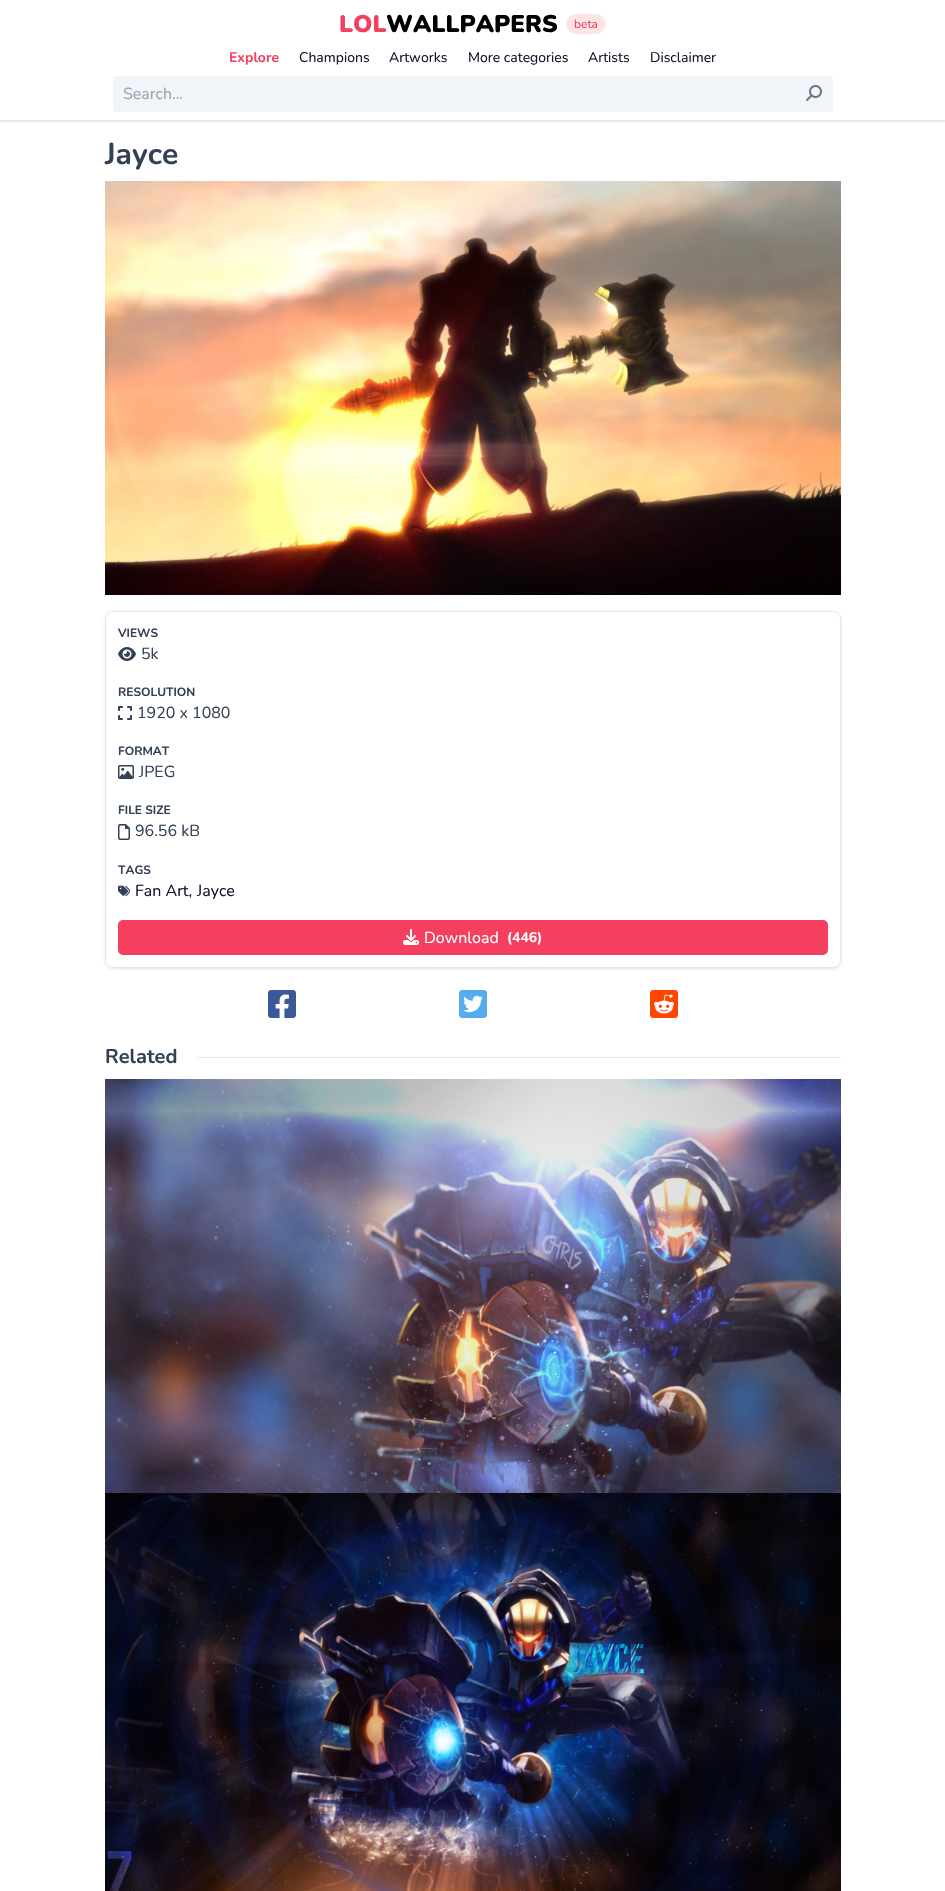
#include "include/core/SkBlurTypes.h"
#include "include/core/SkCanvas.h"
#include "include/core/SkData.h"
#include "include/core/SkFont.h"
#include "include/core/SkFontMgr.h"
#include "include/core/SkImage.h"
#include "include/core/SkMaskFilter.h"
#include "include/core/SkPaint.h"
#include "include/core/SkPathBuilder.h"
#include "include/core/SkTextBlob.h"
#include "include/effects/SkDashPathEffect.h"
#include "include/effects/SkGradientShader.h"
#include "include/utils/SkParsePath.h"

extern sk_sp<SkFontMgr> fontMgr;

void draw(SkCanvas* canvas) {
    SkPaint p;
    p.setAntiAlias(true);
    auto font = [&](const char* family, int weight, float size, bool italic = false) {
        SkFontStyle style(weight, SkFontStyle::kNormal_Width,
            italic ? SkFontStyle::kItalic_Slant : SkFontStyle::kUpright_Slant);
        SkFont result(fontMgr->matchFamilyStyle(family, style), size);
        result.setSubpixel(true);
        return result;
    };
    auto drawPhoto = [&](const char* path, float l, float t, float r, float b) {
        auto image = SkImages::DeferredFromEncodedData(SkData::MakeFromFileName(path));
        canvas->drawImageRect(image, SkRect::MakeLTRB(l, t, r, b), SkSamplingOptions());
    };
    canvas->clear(0xFFFFFFFF);
    canvas->save();
    canvas->clipRect(SkRect::MakeLTRB(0, 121, 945, 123));
    p.setColor(0x1A000000);
    p.setMaskFilter(SkMaskFilter::MakeBlur(kNormal_SkBlurStyle, 1.5f));
    canvas->drawRect(SkRect::MakeLTRB(0, 1, 945, 122), p);
    p.setMaskFilter(nullptr);
    canvas->restore();
    p.setColor(0xFFE5E7EB);
    canvas->drawRect(SkRect::MakeLTRB(0, 120, 945, 121), p);
    auto font1 = font("Nunito", 900, 24);
    p.setColor(0xFFF43F5E);
    canvas->drawString("LOL", 339, 32, font1, p);
    p.setColor(0xFF000000);
    canvas->drawString("WALLPAPERS", 386, 32, font1, p);
    p.setColor(0xFFFFE4E6);
    canvas->drawRoundRect(SkRect::MakeLTRB(566, 14, 606, 34), 10, 10, p);
    auto font2 = font("Nunito", 400, 12);
    p.setColor(0xFFF43F5E);
    canvas->drawString("beta", 574, 28, font2, p);
    auto font3 = font("Nunito", 700, 14);
    canvas->drawString("Explore", 229, 62, font3, p);
    auto font4 = font("Nunito", 400, 14);
    p.setColor(0xFF0F172A);
    {
        const struct { const char* s; float x, y; } items[] = {
            {"Champions", 299, 62},
            {"Artworks", 389, 62},
            {"More categories", 468, 62},
            {"Artists", 588, 62},
            {"Disclaimer", 650, 62},
        };
        for (auto [s, x, y] : items) {
            canvas->drawString(s, x, y, font4, p);
        }
    }
    p.setColor(0xFFF1F5F9);
    canvas->drawRoundRect(SkRect::MakeLTRB(113, 76, 833, 112), 4, 4, p);
    auto font5 = font("Nunito", 400, 16);
    p.setColor(0xFF9CA3AF);
    canvas->drawString("Search...", 123, 99, font5, p);
    drawPhoto("media/1.png", 806, 85, 822, 101);
    auto font6 = font("Nunito", 700, 30);
    p.setColor(0xFF334155);
    canvas->drawString("Jayce", 105, 164, font6, p);
    drawPhoto("media/2.png", 105, 181, 841, 595);
    canvas->save();
    canvas->clipPath(SkPathBuilder(SkPathFillType::kEvenOdd).moveTo(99, 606).lineTo(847, 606).lineTo(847, 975).lineTo(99, 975).close().moveTo(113, 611).lineTo(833, 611).cubicTo(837.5f, 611, 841, 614.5f, 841, 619).lineTo(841, 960).cubicTo(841, 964.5f, 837.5f, 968, 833, 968).lineTo(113, 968).cubicTo(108.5f, 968, 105, 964.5f, 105, 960).lineTo(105, 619).cubicTo(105, 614.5f, 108.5f, 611, 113, 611).close().detach(), true);
    p.setColor(0x1A000000);
    p.setMaskFilter(SkMaskFilter::MakeBlur(kNormal_SkBlurStyle, 1.5f));
    canvas->drawRoundRect(SkRect::MakeLTRB(105, 612, 841, 969), 8, 8, p);
    p.setMaskFilter(nullptr);
    canvas->restore();
    p.setStyle(SkPaint::kStroke_Style);
    p.setStrokeWidth(1);
    p.setColor(0xFFE5E7EB);
    canvas->drawRoundRect(SkRect::MakeLTRB(105.5f, 611.5f, 840.5f, 967.5f), 7.5f, 7.5f, p);
    auto font7 = font("Nunito", 700, 12);
    p.setStyle(SkPaint::kFill_Style);
    p.setColor(0xFF334155);
    canvas->drawString("VIEWS", 118, 637, font7, p);
    drawPhoto("media/3.png", 118, 647, 136, 661);
    canvas->drawString("5k", 141, 659, font5, p);
    canvas->drawString("RESOLUTION", 118, 696, font7, p);
    drawPhoto("media/4.png", 118, 706, 132, 720);
    canvas->drawString("1920 x 1080", 137, 718, font5, p);
    canvas->drawString("FORMAT", 118, 755, font7, p);
    drawPhoto("media/5.png", 118, 765, 134, 779);
    canvas->drawString("JPEG", 139, 777, font5, p);
    canvas->drawString("FILE SIZE", 118, 814, font7, p);
    drawPhoto("media/6.png", 118, 824, 130, 840);
    canvas->drawString("96.56 kB", 135, 836, font5, p);
    canvas->drawString("TAGS", 118, 874, font7, p);
    drawPhoto("media/7.png", 118, 885, 130, 897);
    p.setColor(0xFF0F172A);
    canvas->drawString("Fan Art,", 135, 896, font5, p);
    canvas->drawString("Jayce", 197, 896, font5, p);
    p.setColor(0xFFF43F5E);
    canvas->drawRoundRect(SkRect::MakeLTRB(118, 920, 828, 955), 5, 5, p);
    drawPhoto("media/8.png", 403, 929, 419, 945);
    p.setColor(0xFFFFFFFF);
    canvas->drawString("Download", 424, 943, font5, p);
    canvas->drawString("(446)", 507, 942, font3, p);
    drawPhoto("media/9.png", 268, 990, 296, 1018);
    drawPhoto("media/10.png", 459, 990, 487, 1018);
    drawPhoto("media/11.png", 650, 990, 678, 1018);
    auto font8 = font("Nunito", 700, 20);
    p.setColor(0xFF334155);
    canvas->drawString("Related", 105, 1063, font8, p);
    p.setColor(0xFFE2E8F0);
    canvas->drawRect(SkRect::MakeLTRB(197, 1057, 841, 1058), p);
    drawPhoto("media/12.png", 105, 1079, 841, 1493);
    drawPhoto("media/13.png", 105, 1493, 841, 1891);
}
